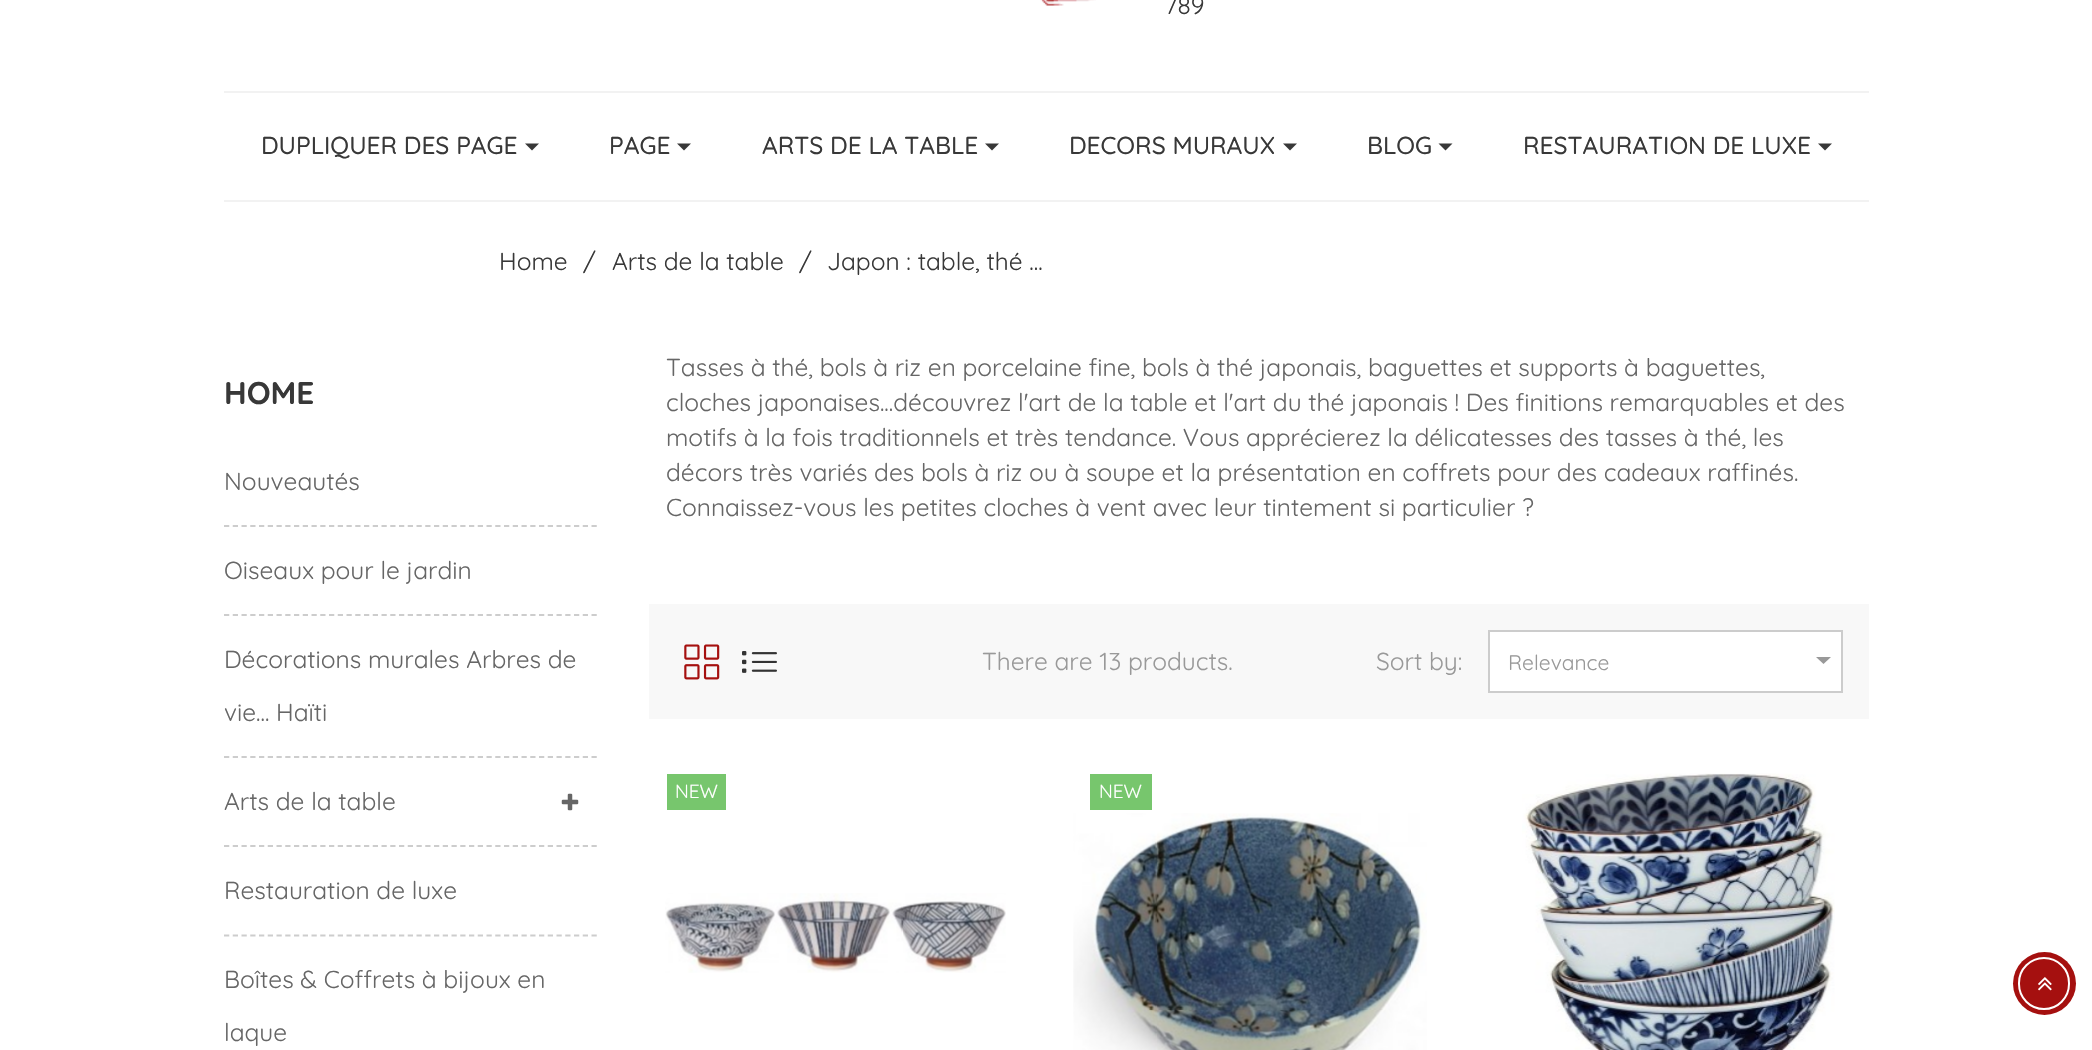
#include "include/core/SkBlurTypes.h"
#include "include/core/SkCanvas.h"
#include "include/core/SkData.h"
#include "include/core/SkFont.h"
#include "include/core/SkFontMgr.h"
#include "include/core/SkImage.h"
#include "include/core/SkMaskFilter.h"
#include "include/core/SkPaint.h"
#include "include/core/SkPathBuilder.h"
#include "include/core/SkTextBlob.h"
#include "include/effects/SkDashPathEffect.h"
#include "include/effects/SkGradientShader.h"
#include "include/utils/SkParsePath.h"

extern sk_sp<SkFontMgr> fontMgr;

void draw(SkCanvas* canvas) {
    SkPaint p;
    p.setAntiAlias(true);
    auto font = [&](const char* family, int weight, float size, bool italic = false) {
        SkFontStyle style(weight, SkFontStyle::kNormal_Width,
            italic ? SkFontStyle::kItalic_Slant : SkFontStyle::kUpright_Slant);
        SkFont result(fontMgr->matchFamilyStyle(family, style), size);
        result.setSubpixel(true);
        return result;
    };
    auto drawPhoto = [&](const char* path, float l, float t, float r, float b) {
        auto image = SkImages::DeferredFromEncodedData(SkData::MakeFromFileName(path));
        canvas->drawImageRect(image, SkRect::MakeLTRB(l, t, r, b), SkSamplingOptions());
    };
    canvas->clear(0xFFFFFFFF);
    drawPhoto("media/1.png", 1040, 0, 1096, 6);
    auto font1 = font("Quicksand", 400, 24.5f);
    p.setColor(0xFF383838);
    canvas->drawString("789", 1165, 14, font1, p);
    p.setColor(0xFFF2F2F2);
    canvas->drawRect(SkRect::MakeLTRB(224, 91, 1869, 93), p);
    canvas->drawRect(SkRect::MakeLTRB(224, 200, 1869, 202), p);
    auto font2 = font("Quicksand", 500, 24.5f);
    p.setColor(0xFF383838);
    canvas->drawString("DUPLIQUER DES PAGE", 261, 154, font2, p);
    canvas->drawPath(SkPathBuilder().moveTo(525, 143.5f).lineTo(539, 143.5f).lineTo(532, 150.5f).close().detach(), p);
    canvas->drawString("PAGE", 609, 154, font2, p);
    canvas->drawPath(SkPathBuilder().moveTo(677, 143.5f).lineTo(691, 143.5f).lineTo(684, 150.5f).close().detach(), p);
    canvas->drawString("ARTS DE LA TABLE", 762, 154, font2, p);
    canvas->drawPath(SkPathBuilder().moveTo(985, 143.5f).lineTo(999, 143.5f).lineTo(992, 150.5f).close().detach(), p);
    canvas->drawString("DECORS MURAUX", 1069, 154, font2, p);
    canvas->drawPath(SkPathBuilder().moveTo(1283, 143.5f).lineTo(1297, 143.5f).lineTo(1290, 150.5f).close().detach(), p);
    canvas->drawString("BLOG", 1367, 154, font2, p);
    canvas->drawPath(SkPathBuilder().moveTo(1438.5f, 143.5f).lineTo(1452.5f, 143.5f).lineTo(1445.5f, 150.5f).close().detach(), p);
    canvas->drawString("RESTAURATION DE LUXE", 1523, 154, font2, p);
    canvas->drawPath(SkPathBuilder().moveTo(1818, 143.5f).lineTo(1832, 143.5f).lineTo(1825, 150.5f).close().detach(), p);
    {
        const struct { const char* s; float x, y; } items[] = {
            {"Home", 499, 270},
            {"/", 583, 270},
            {"Arts de la table", 612, 270},
            {"/", 799, 270},
            {"Japon : table, thé ...", 827, 270},
        };
        for (auto [s, x, y] : items) {
            canvas->drawString(s, x, y, font1, p);
        }
    }
    auto font3 = font("Quicksand", 700, 31.5f);
    canvas->drawString("HOME", 224, 404, font3, p);
    p.setStyle(SkPaint::kStroke_Style);
    p.setStrokeWidth(1.8f);
    p.setColor(0xFFCDCDCD);
    p.setPathEffect(SkDashPathEffect::Make({{5.25f, 3.5f}}, 0));
    canvas->drawPath(SkPathBuilder().moveTo(224, 526).lineTo(597, 526).detach(), p);
    p.setPathEffect(nullptr);
    p.setStyle(SkPaint::kFill_Style);
    p.setColor(0xFF666666);
    canvas->drawString("Nouveautés", 224, 490, font1, p);
    p.setStyle(SkPaint::kStroke_Style);
    p.setColor(0xFFCDCDCD);
    p.setPathEffect(SkDashPathEffect::Make({{5.25f, 3.5f}}, 0));
    canvas->drawPath(SkPathBuilder().moveTo(224, 615).lineTo(597, 615).detach(), p);
    p.setPathEffect(nullptr);
    p.setStyle(SkPaint::kFill_Style);
    p.setColor(0xFF666666);
    canvas->drawString("Oiseaux pour le jardin", 224, 579, font1, p);
    p.setStyle(SkPaint::kStroke_Style);
    p.setColor(0xFFCDCDCD);
    p.setPathEffect(SkDashPathEffect::Make({{5.25f, 3.5f}}, 0));
    canvas->drawPath(SkPathBuilder().moveTo(224, 757).lineTo(597, 757).detach(), p);
    p.setPathEffect(nullptr);
    p.setStyle(SkPaint::kFill_Style);
    p.setColor(0xFF666666);
    canvas->drawString("Décorations murales Arbres de", 224, 668, font1, p);
    canvas->drawString("vie... Haïti", 224, 721, font1, p);
    p.setStyle(SkPaint::kStroke_Style);
    p.setColor(0xFFCDCDCD);
    p.setPathEffect(SkDashPathEffect::Make({{5.25f, 3.5f}}, 0));
    canvas->drawPath(SkPathBuilder().moveTo(224, 846).lineTo(597, 846).detach(), p);
    p.setPathEffect(nullptr);
    p.setStyle(SkPaint::kFill_Style);
    p.setColor(0xFF666666);
    canvas->drawString("Arts de la table", 224, 810, font1, p);
    drawPhoto("media/2.png", 561, 793, 579, 811);
    p.setStyle(SkPaint::kStroke_Style);
    p.setColor(0xFFCDCDCD);
    p.setPathEffect(SkDashPathEffect::Make({{5.25f, 3.5f}}, 0));
    canvas->drawPath(SkPathBuilder().moveTo(224, 935.5f).lineTo(597, 935.5f).detach(), p);
    p.setPathEffect(nullptr);
    p.setStyle(SkPaint::kFill_Style);
    p.setColor(0xFF666666);
    {
        const struct { const char* s; float x, y; } items[] = {
            {"Restauration de luxe", 224, 899},
            {"Boîtes & Coffrets à bijoux en", 224, 988},
            {"laque", 224, 1041},
            {"Tasses à thé, bols à riz en porcelaine fine, bols à thé japonais, baguettes et supports à baguettes,", 666, 376},
            {"cloches japonaises...découvrez l'art de la table et l'art du thé japonais ! Des finitions remarquables et des", 666, 411},
            {"motifs à la fois traditionnels et très tendance. Vous apprécierez la délicatesses des tasses à thé, les", 666, 446},
            {"décors très variés des bols à riz ou à soupe et la présentation en coffrets pour des cadeaux raffinés.", 666, 481},
            {"Connaissez-vous les petites cloches à vent avec leur tintement si particulier ?", 666, 516},
        };
        for (auto [s, x, y] : items) {
            canvas->drawString(s, x, y, font1, p);
        }
    }
    p.setColor(0xFFF8F8F8);
    canvas->drawRect(SkRect::MakeLTRB(649, 604, 1869, 719), p);
    drawPhoto("media/3.png", 684, 644, 720, 680);
    drawPhoto("media/4.png", 742, 651, 777, 673);
    p.setColor(0xFF999999);
    canvas->drawString("There are 13 products.", 982, 670, font1, p);
    canvas->drawString("Sort by:", 1376, 670, font1, p);
    p.setColor(0xFFFFFFFF);
    canvas->drawRect(SkRect::MakeLTRB(1489, 631, 1842, 692), p);
    p.setStyle(SkPaint::kStroke_Style);
    p.setStrokeWidth(2);
    p.setColor(0xFFCCCCCC);
    canvas->drawRect(SkRect::MakeLTRB(1489, 631, 1842, 692), p);
    auto font4 = font("Quicksand", 400, 21);
    p.setStyle(SkPaint::kFill_Style);
    p.setColor(0xFF999999);
    canvas->drawString("Relevance", 1508, 670, font4, p);
    canvas->drawPath(SkPathBuilder().moveTo(1816, 657).lineTo(1831, 657).lineTo(1823.5f, 664).close().detach(), p);
    p.setColor(0xFF77C66D);
    canvas->drawRect(SkRect::MakeLTRB(667, 774, 726, 810), p);
    auto font5 = font("Quicksand", 400, 19);
    p.setColor(0xFFFFFFFF);
    canvas->drawString("NEW", 675, 798, font5, p);
    drawPhoto("media/5.png", 665, 893, 1006, 973);
    p.setColor(0xFF77C66D);
    canvas->drawRect(SkRect::MakeLTRB(1090, 774, 1152, 810), p);
    p.setColor(0xFFFFFFFF);
    canvas->drawString("NEW", 1099, 798, font5, p);
    drawPhoto("media/6.png", 1073, 813, 1427, 1050);
    drawPhoto("media/7.png", 1522, 773, 1835, 1050);
    p.setColor(0xFFA5100F);
    canvas->drawCircle(2044.5f, 983.5f, 31.5f, p);
    p.setStyle(SkPaint::kStroke_Style);
    p.setColor(0xFFFFFFFF);
    canvas->drawRoundRect(SkRect::MakeLTRB(2019, 958, 2069, 1009), 25, 25, p);
    drawPhoto("media/8.png", 2038, 977, 2052, 991);
}
